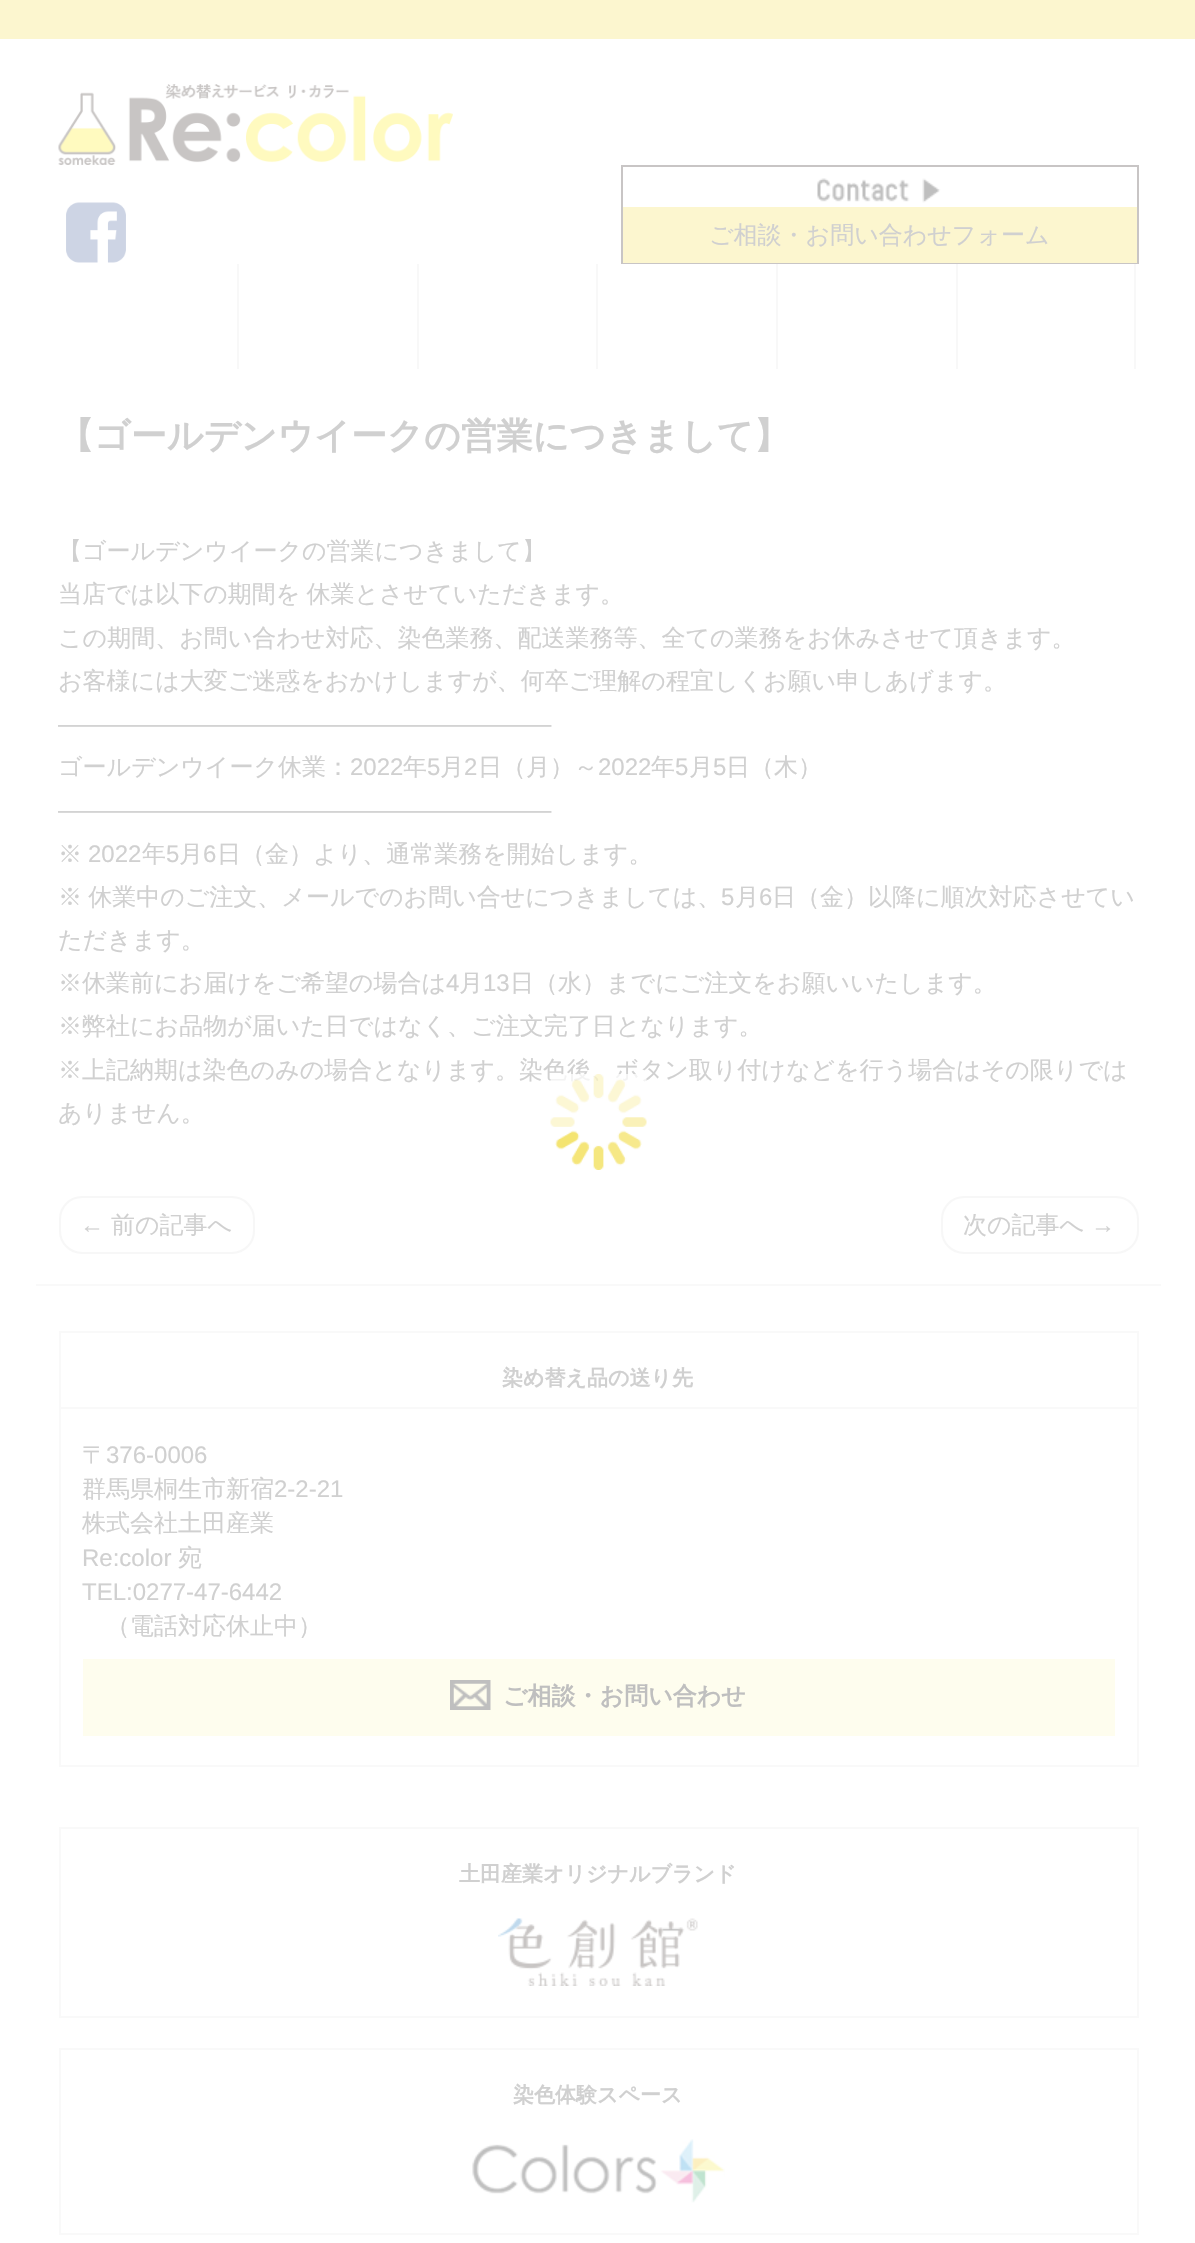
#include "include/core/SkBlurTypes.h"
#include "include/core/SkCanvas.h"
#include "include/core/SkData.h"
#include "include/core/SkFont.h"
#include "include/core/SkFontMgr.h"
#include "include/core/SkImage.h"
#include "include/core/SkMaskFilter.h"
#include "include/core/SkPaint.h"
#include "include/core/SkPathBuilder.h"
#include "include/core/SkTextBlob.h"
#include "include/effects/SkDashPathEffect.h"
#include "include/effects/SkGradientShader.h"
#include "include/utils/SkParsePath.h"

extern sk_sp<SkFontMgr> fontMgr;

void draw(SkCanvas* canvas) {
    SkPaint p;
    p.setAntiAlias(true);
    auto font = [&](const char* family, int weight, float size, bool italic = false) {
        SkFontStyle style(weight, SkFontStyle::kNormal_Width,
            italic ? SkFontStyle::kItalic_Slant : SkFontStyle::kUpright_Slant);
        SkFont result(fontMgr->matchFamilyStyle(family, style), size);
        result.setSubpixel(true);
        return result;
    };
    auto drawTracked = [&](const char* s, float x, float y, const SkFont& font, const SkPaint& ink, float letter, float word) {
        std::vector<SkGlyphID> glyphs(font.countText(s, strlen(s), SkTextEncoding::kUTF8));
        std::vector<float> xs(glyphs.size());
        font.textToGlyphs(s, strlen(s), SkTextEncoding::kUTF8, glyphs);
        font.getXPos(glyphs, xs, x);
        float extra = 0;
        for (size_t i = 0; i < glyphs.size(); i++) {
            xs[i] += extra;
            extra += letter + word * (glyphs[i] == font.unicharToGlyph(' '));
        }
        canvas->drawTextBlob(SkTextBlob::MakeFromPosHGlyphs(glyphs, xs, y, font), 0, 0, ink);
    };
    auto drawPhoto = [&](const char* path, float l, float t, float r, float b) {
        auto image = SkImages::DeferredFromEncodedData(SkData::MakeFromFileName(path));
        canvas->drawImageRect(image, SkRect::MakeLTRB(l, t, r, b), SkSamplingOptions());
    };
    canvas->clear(0xFFFFFFFF);
    p.setColor(0xFFFCF6CF);
    canvas->drawRect(SkRect::MakeLTRB(0, 0, 1195, 39), p);
    drawPhoto("media/1.png", 58, 84, 453, 165);
    drawPhoto("media/2.png", 66, 202, 126, 263);
    p.setStyle(SkPaint::kStroke_Style);
    p.setStrokeWidth(2);
    p.setColor(0xFFC8C5C5);
    canvas->drawRect(SkRect::MakeLTRB(622, 166, 1138, 263), p);
    drawPhoto("media/3.png", 817, 178, 941, 203);
    p.setStyle(SkPaint::kFill_Style);
    p.setColor(0xFFFCF6CF);
    canvas->drawRect(SkRect::MakeLTRB(623, 207, 1137, 263), p);
    auto font1 = font("WenQuanYi Zen Hei", 500, 24);
    p.setColor(0xFFD0D0D0);
    canvas->drawString("ご相談・お問い合わせフォーム", 709, 243, font1, p);
    {
        const struct { float l, t, r, b; SkColor color; } items[] = {
            {237, 264, 239, 369, 0xFFF8F8F8},
            {417, 264, 419, 369, 0xFFF8F8F8},
            {596, 264, 598, 369, 0xFFF8F8F8},
            {776, 264, 778, 369, 0xFFF8F8F8},
            {956, 264, 958, 369, 0xFFF8F8F8},
            {1134, 264, 1136, 369, 0xFFF8F8F8},
            {36, 1284, 1161, 1286, 0xFFF9F9F9},
        };
        for (auto [l, t, r, b, color] : items) {
            p.setColor(color);
            canvas->drawRect(SkRect::MakeLTRB(l, t, r, b), p);
        }
    }
    auto font2 = font("WenQuanYi Zen Hei", 700, 36);
    p.setColor(0xFFD0D0D0);
    canvas->drawString("【ゴールデンウイークの営業につきまして】", 58, 448, font2, p);
    canvas->drawString("【ゴールデンウイークの営業につきまして】", 58, 559, font1, p);
    drawTracked("当店では以下の期間を 休業とさせていただきます。", 58, 602, font1, p, 0, -1);
    canvas->drawString("この期間、お問い合わせ対応、染色業務、配送業務等、全ての業務をお休みさせて頂きます。", 58, 646, font1, p);
    canvas->drawString("お客様には大変ご迷惑をおかけしますが、何卒ご理解の程宜しくお願い申しあげます。", 58, 689, font1, p);
    auto font3 = font("Liberation Sans", 400, 24);
    canvas->drawString("————————————————————–", 58, 732, font3, p);
    canvas->drawString("ゴールデンウイーク休業：", 58, 775, font1, p);
    canvas->drawString("2022", 350, 775, font3, p);
    canvas->drawString("年", 403, 775, font1, p);
    canvas->drawString("5", 427, 775, font3, p);
    canvas->drawString("月", 440, 775, font1, p);
    canvas->drawString("2", 464, 775, font3, p);
    canvas->drawString("日（月）～", 478, 775, font1, p);
    canvas->drawString("2022", 598, 775, font3, p);
    canvas->drawString("年", 651, 775, font1, p);
    canvas->drawString("5", 675, 775, font3, p);
    canvas->drawString("月", 689, 775, font1, p);
    canvas->drawString("5", 713, 775, font3, p);
    canvas->drawString("日（木）", 726, 775, font1, p);
    canvas->drawString("————————————————————–", 58, 818, font3, p);
    canvas->drawString("※", 58, 862, font1, p);
    canvas->drawString("2022", 88, 862, font3, p);
    canvas->drawString("年", 142, 862, font1, p);
    canvas->drawString("5", 166, 862, font3, p);
    canvas->drawString("月", 179, 862, font1, p);
    canvas->drawString("6", 203, 862, font3, p);
    canvas->drawString("日（金）より、通常業務を開始します。", 217, 862, font1, p);
    drawTracked("※ 休業中のご注文、メールでのお問い合せにつきましては、", 58, 905, font1, p, 0, -1);
    canvas->drawString("5", 721, 905, font3, p);
    canvas->drawString("月", 735, 905, font1, p);
    canvas->drawString("6", 759, 905, font3, p);
    {
        const struct { const char* s; float x, y; } items[] = {
            {"日（金）以降に順次対応させてい", 772, 905},
            {"ただきます。", 58, 948},
            {"※休業前にお届けをご希望の場合は", 58, 991},
        };
        for (auto [s, x, y] : items) {
            canvas->drawString(s, x, y, font1, p);
        }
    }
    canvas->drawString("4", 446, 991, font3, p);
    canvas->drawString("月", 459, 991, font1, p);
    canvas->drawString("13", 483, 991, font3, p);
    {
        const struct { const char* s; float x, y; } items[] = {
            {"日（水）までにご注文をお願いいたします。", 510, 991},
            {"※弊社にお品物が届いた日ではなく、ご注文完了日となります。", 58, 1034},
            {"※上記納期は染色のみの場合となります。染色後、ボタン取り付けなどを行う場合はその限りでは", 58, 1078},
            {"ありません。", 58, 1121},
        };
        for (auto [s, x, y] : items) {
            canvas->drawString(s, x, y, font1, p);
        }
    }
    p.setStyle(SkPaint::kStroke_Style);
    p.setColor(0xFFF7F7F7);
    canvas->drawRoundRect(SkRect::MakeLTRB(60, 1197, 254, 1253), 22, 22, p);
    p.setStyle(SkPaint::kFill_Style);
    p.setColor(0xFFD0D0D0);
    canvas->drawString("←", 80, 1233, font3, p);
    canvas->drawString("前の記事へ", 111, 1233, font1, p);
    p.setStyle(SkPaint::kStroke_Style);
    p.setColor(0xFFF7F7F7);
    canvas->drawRoundRect(SkRect::MakeLTRB(942, 1197, 1138, 1253), 22, 22, p);
    p.setStyle(SkPaint::kFill_Style);
    p.setColor(0xFFD0D0D0);
    canvas->drawString("次の記事へ", 963, 1233, font1, p);
    canvas->drawString("→", 1091, 1233, font3, p);
    p.setStyle(SkPaint::kStroke_Style);
    p.setColor(0xFFF9F9F9);
    canvas->drawRect(SkRect::MakeLTRB(60, 1332, 1138, 1766), p);
    p.setStyle(SkPaint::kFill_Style);
    canvas->drawRect(SkRect::MakeLTRB(60, 1407, 1137, 1409), p);
    auto font4 = font("WenQuanYi Zen Hei", 700, 21);
    p.setColor(0xFFD0D0D0);
    canvas->drawString("染め替え品の送り先", 502, 1385, font4, p);
    canvas->drawString("〒", 82, 1463, font1, p);
    canvas->drawString("376-0006", 106, 1463, font3, p);
    canvas->drawString("群馬県桐生市新宿", 82, 1497, font1, p);
    canvas->drawString("2-2-21", 274, 1497, font3, p);
    canvas->drawString("株式会社土田産業", 82, 1531, font1, p);
    canvas->drawString("Re:color", 82, 1566, font3, p);
    canvas->drawString("宛", 178, 1566, font1, p);
    canvas->drawString("TEL:0277-47-6442", 82, 1600, font3, p);
    canvas->drawString("（電話対応休止中）", 106, 1634, font1, p);
    p.setColor(0xFFFEFDEE);
    canvas->drawRect(SkRect::MakeLTRB(83, 1659, 1115, 1736), p);
    drawPhoto("media/4.png", 450, 1680, 491, 1710);
    auto font5 = font("WenQuanYi Zen Hei", 700, 24);
    p.setColor(0xFFBFBFBF);
    canvas->drawString("ご相談・お問い合わせ", 503, 1704, font5, p);
    p.setStyle(SkPaint::kStroke_Style);
    p.setColor(0xFFF9F9F9);
    canvas->drawRect(SkRect::MakeLTRB(60, 1828, 1138, 2017), p);
    p.setStyle(SkPaint::kFill_Style);
    p.setColor(0xFFD0D0D0);
    canvas->drawString("土田産業オリジナルブランド", 459, 1881, font4, p);
    drawPhoto("media/5.png", 498, 1918, 698, 1986);
    p.setStyle(SkPaint::kStroke_Style);
    p.setColor(0xFFF9F9F9);
    canvas->drawRect(SkRect::MakeLTRB(60, 2049, 1138, 2234), p);
    p.setStyle(SkPaint::kFill_Style);
    p.setColor(0xFFD0D0D0);
    canvas->drawString("染色体験スペース", 513, 2102, font4, p);
    drawPhoto("media/6.png", 472, 2139, 725, 2203);
    drawPhoto("media/7.png", 550, 1074, 647, 1170);
}
